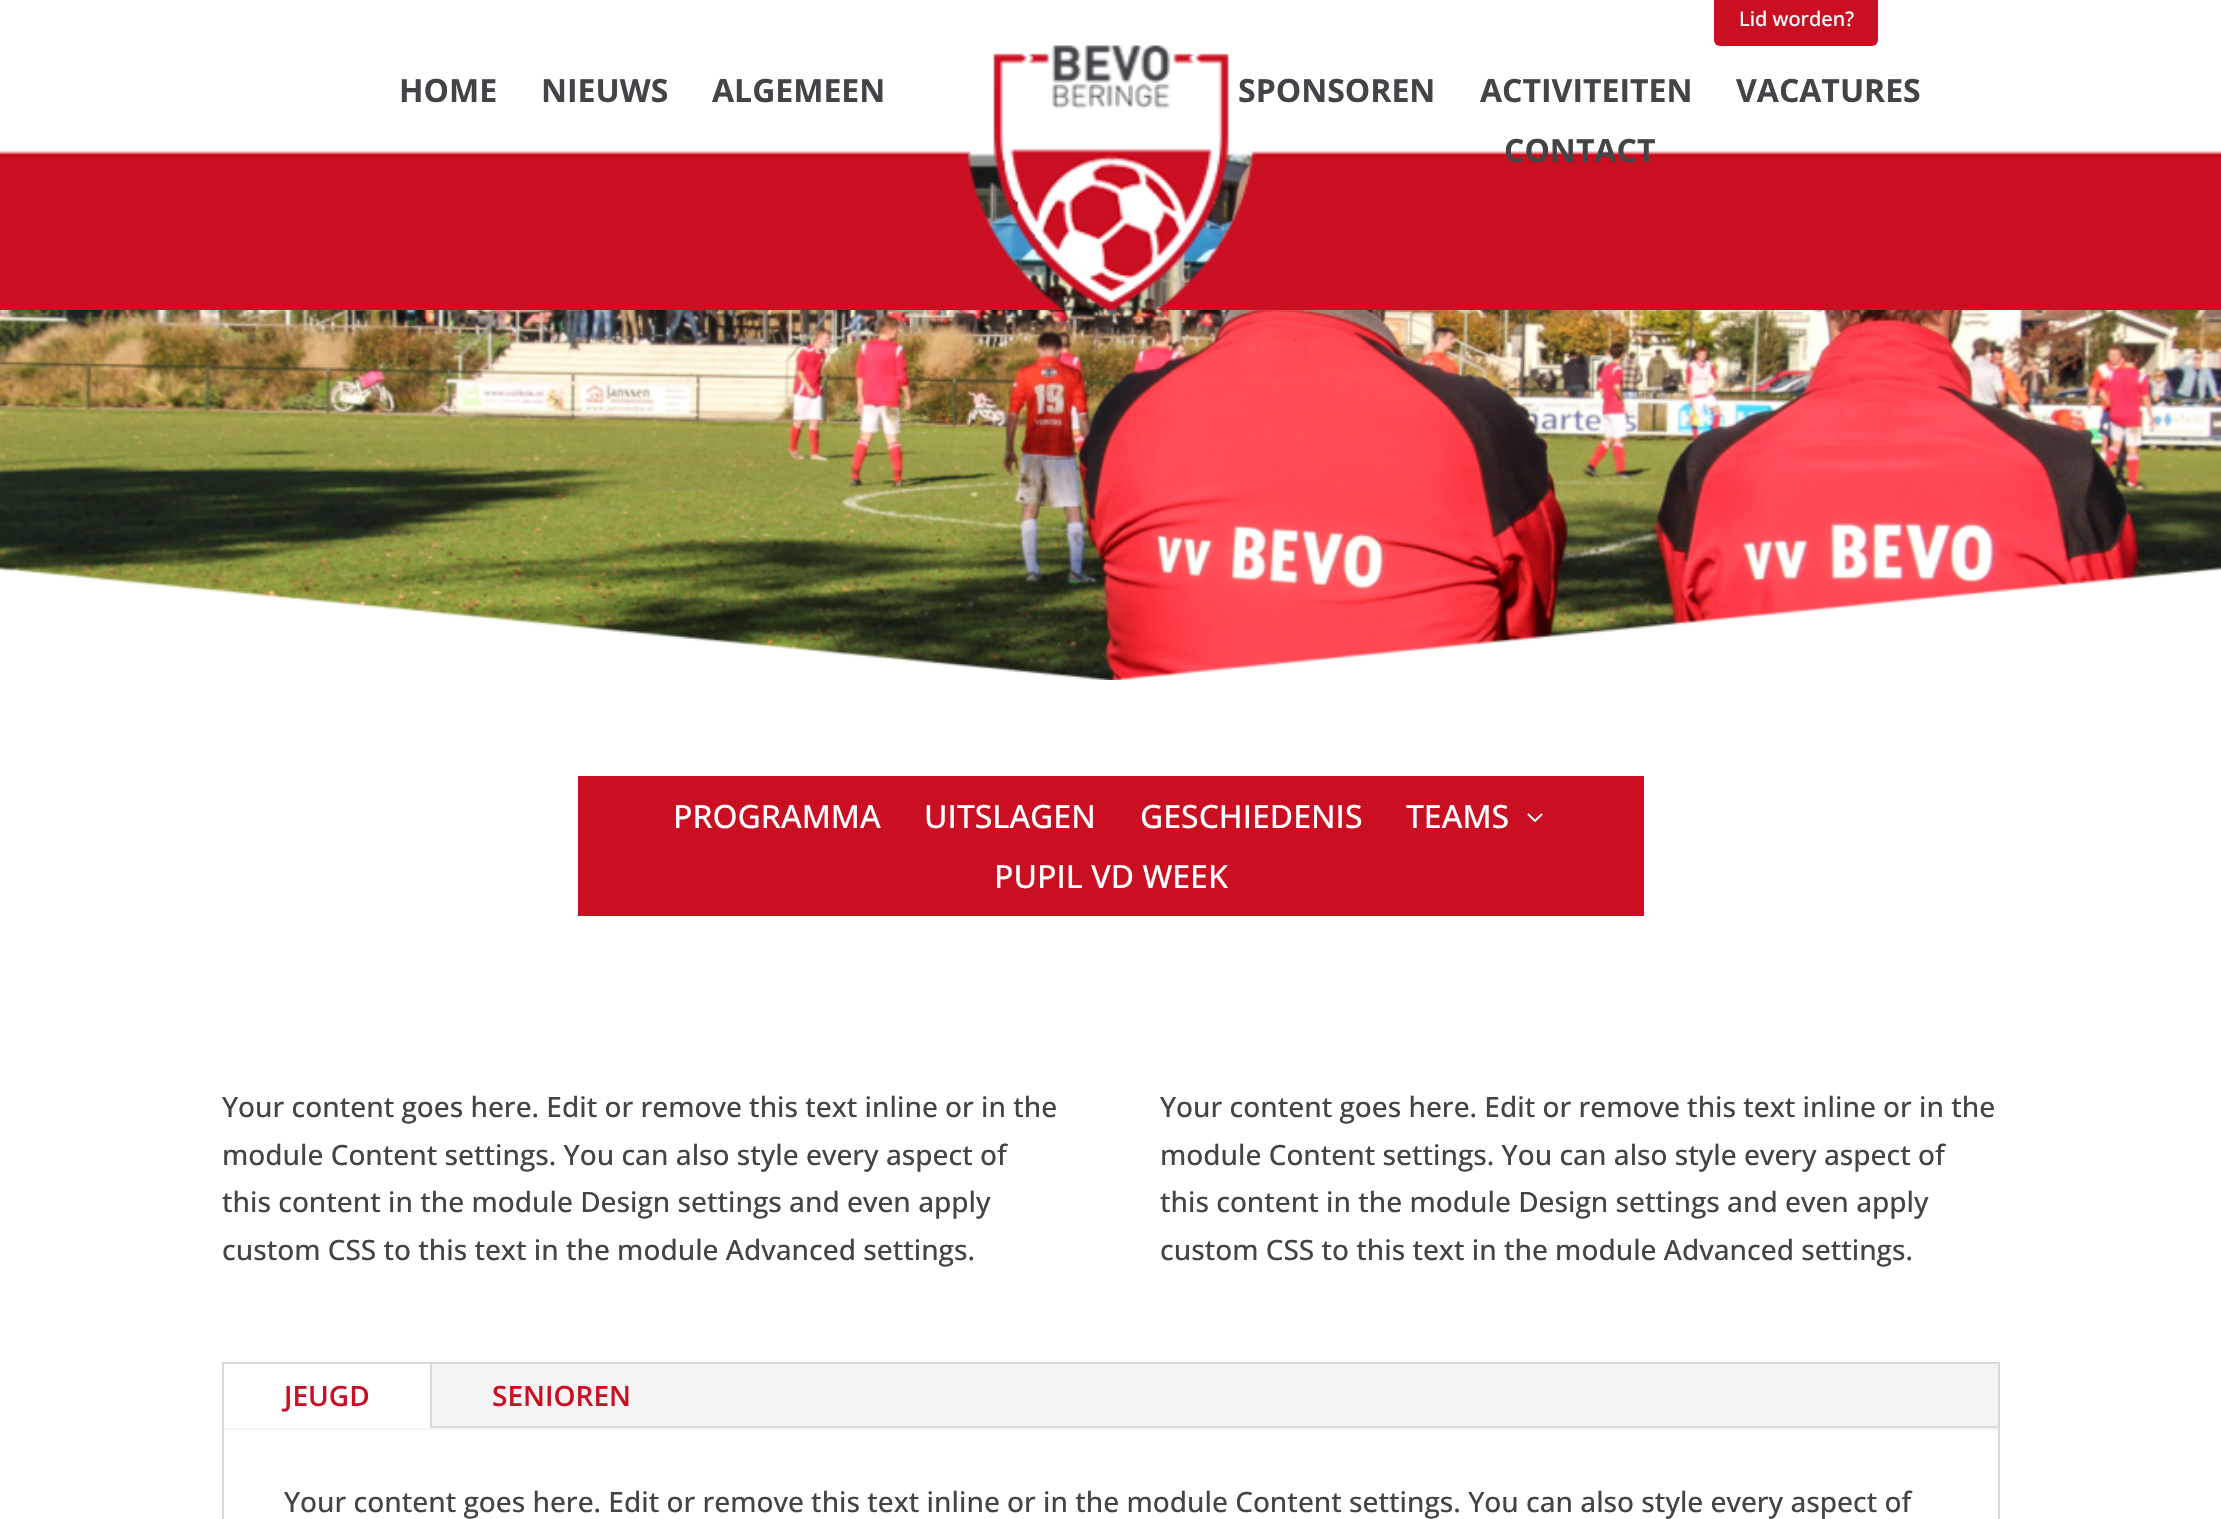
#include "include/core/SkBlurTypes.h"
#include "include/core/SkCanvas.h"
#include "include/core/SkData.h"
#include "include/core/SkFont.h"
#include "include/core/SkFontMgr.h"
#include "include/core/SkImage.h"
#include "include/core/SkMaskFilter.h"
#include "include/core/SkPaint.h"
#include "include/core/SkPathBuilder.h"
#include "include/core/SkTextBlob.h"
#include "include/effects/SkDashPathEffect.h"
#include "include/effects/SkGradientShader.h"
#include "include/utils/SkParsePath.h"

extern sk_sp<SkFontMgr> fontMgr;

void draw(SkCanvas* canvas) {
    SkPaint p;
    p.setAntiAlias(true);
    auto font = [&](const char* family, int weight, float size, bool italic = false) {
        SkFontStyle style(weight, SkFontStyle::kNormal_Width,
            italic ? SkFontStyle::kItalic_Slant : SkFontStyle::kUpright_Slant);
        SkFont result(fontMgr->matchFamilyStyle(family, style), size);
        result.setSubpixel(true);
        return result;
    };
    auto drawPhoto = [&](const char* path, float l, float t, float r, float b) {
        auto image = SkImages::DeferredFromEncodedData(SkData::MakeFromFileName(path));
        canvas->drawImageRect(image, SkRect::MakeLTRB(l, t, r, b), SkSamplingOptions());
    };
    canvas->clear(0xFFFFFFFF);
    drawPhoto("media/2.png", 0, 151, 2221, 680);
    drawPhoto("media/1.png", 0, 45, 2221, 310);
    auto font1 = font("Open Sans", 700, 32);
    p.setColor(0xFF424448);
    {
        const struct { const char* s; float x, y; } items[] = {
            {"HOME", 399, 102},
            {"NIEUWS", 541, 102},
            {"ALGEMEEN", 712, 102},
        };
        for (auto [s, x, y] : items) {
            canvas->drawString(s, x, y, font1, p);
        }
    }
    p.setColor(0xFFCB0F22);
    canvas->drawRoundRect(SkRect::MakeLTRB(1714, -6, 1878, 46), 6, 6, p);
    auto font2 = font("Open Sans", 500, 20);
    p.setColor(0xFFFFFFFF);
    canvas->drawString("Lid worden?", 1739, 26, font2, p);
    p.setColor(0xFF424448);
    {
        const struct { const char* s; float x, y; } items[] = {
            {"SPONSOREN", 1238, 102},
            {"ACTIVITEITEN", 1480, 102},
            {"VACATURES", 1736, 102},
            {"CONTACT", 1504, 162},
        };
        for (auto [s, x, y] : items) {
            canvas->drawString(s, x, y, font1, p);
        }
    }
    p.setColor(0xFFCB0F22);
    canvas->drawRect(SkRect::MakeLTRB(578, 776, 1644, 916), p);
    auto font3 = font("Open Sans", 500, 32);
    p.setColor(0xFFFFFFFF);
    {
        const struct { const char* s; float x, y; } items[] = {
            {"PROGRAMMA", 673, 828},
            {"UITSLAGEN", 924, 828},
            {"GESCHIEDENIS", 1140, 828},
            {"TEAMS", 1406, 828},
        };
        for (auto [s, x, y] : items) {
            canvas->drawString(s, x, y, font3, p);
        }
    }
    drawPhoto("media/3.png", 1527, 813, 1543, 822);
    canvas->drawString("PUPIL VD WEEK", 994, 888, font3, p);
    auto font4 = font("Open Sans", 500, 28);
    p.setColor(0xFF424448);
    {
        const struct { const char* s; float x, y; } items[] = {
            {"Your content goes here. Edit or remove this text inline or in the", 222, 1117},
            {"module Content settings. You can also style every aspect of", 222, 1165},
            {"this content in the module Design settings and even apply", 222, 1212},
            {"custom CSS to this text in the module Advanced settings.", 222, 1260},
            {"Your content goes here. Edit or remove this text inline or in the", 1160, 1117},
            {"module Content settings. You can also style every aspect of", 1160, 1165},
            {"this content in the module Design settings and even apply", 1160, 1212},
            {"custom CSS to this text in the module Advanced settings.", 1160, 1260},
        };
        for (auto [s, x, y] : items) {
            canvas->drawString(s, x, y, font4, p);
        }
    }
    p.setStyle(SkPaint::kStroke_Style);
    p.setStrokeWidth(2);
    p.setColor(0xFFD9D9D9);
    canvas->drawRect(SkRect::MakeLTRB(223, 1363, 1999, 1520), p);
    p.setStyle(SkPaint::kFill_Style);
    {
        const struct { float l, t, r, b; SkColor color; } items[] = {
            {224, 1364, 1998, 1430, 0xFFF4F4F4},
            {224, 1364, 430, 1428, 0xFFFFFFFF},
            {430, 1364, 432, 1428, 0xFFD9D9D9},
        };
        for (auto [l, t, r, b, color] : items) {
            p.setColor(color);
            canvas->drawRect(SkRect::MakeLTRB(l, t, r, b), p);
        }
    }
    auto font5 = font("Open Sans", 600, 28);
    p.setColor(0xFFCB0F22);
    canvas->drawString("JEUGD", 284, 1406, font5, p);
    canvas->drawString("SENIOREN", 492, 1406, font5, p);
    p.setColor(0xFFD9D9D9);
    canvas->drawRect(SkRect::MakeLTRB(432, 1426, 1998, 1428), p);
    p.setColor(0xFF424448);
    canvas->drawString("Your content goes here. Edit or remove this text inline or in the module Content settings. You can also style every aspect of", 284, 1512, font4, p);
}
